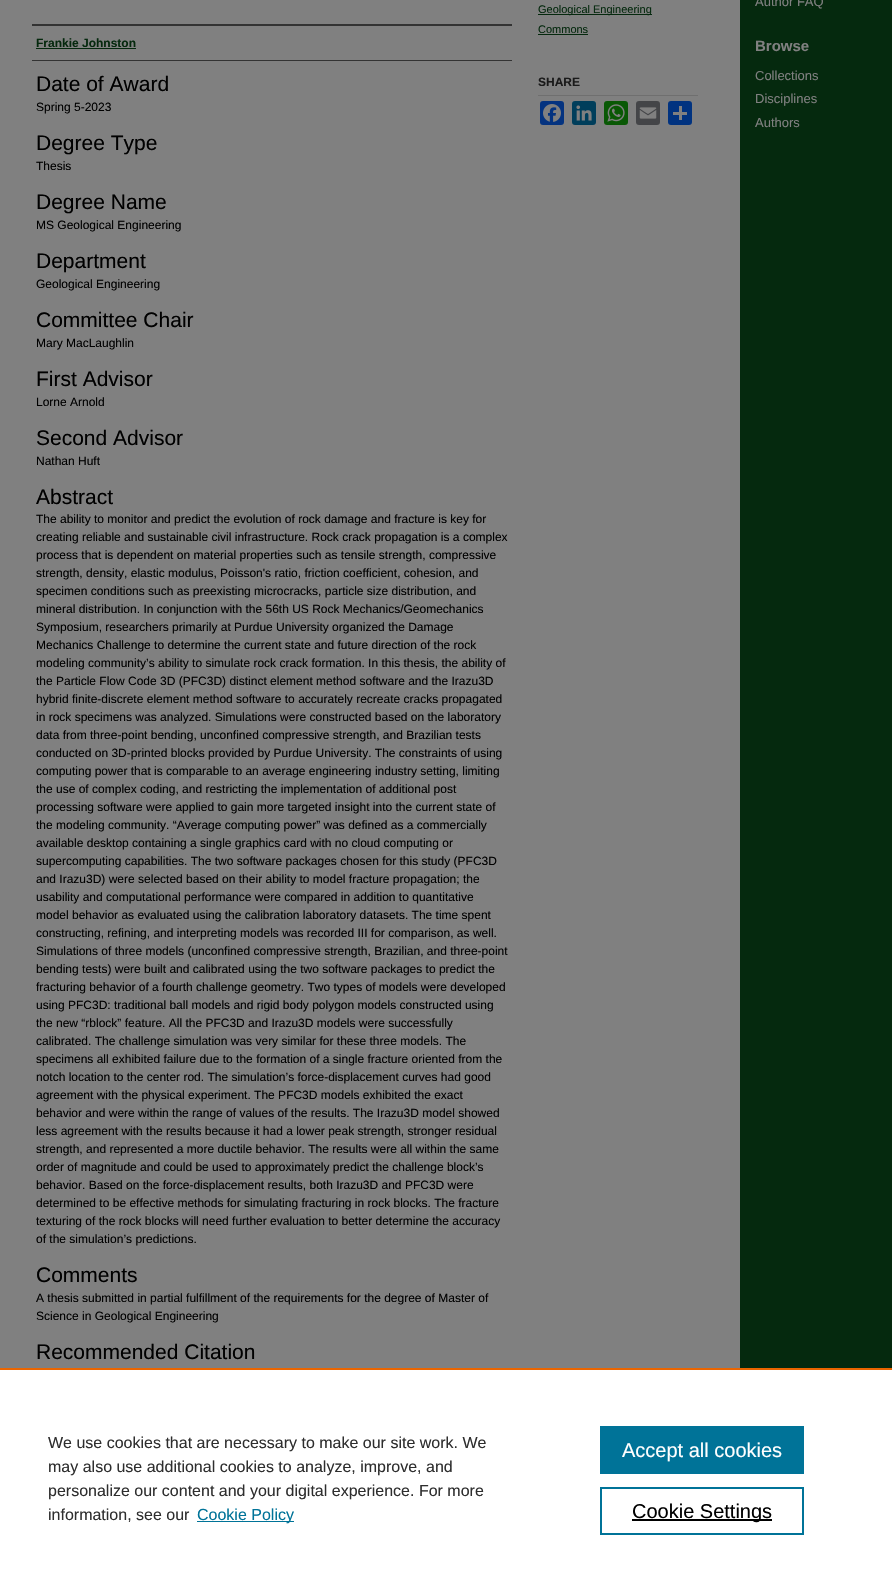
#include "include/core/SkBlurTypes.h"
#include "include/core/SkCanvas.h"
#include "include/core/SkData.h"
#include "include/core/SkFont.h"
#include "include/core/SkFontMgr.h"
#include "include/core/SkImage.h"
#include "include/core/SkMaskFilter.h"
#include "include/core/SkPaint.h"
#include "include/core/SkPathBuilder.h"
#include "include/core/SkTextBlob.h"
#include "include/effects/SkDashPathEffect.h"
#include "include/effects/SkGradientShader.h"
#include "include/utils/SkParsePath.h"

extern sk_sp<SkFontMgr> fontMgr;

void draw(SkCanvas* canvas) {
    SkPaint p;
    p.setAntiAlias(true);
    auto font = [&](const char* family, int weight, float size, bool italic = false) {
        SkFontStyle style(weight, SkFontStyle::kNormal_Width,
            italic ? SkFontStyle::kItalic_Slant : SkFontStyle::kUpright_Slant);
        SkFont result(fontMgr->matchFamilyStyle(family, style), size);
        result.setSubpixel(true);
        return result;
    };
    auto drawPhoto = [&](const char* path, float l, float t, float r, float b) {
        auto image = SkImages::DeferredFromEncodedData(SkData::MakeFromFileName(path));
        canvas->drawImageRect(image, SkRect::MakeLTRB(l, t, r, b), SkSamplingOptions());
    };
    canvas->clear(0xFF05290E);
    {
        const struct { float l, t, r, b; SkColor color; } items[] = {
            {0, 0, 740, 1368, 0xFF808080},
            {32, 24, 512, 26, 0xFF333333},
            {32, 60, 512, 61, 0xFF333333},
        };
        for (auto [l, t, r, b, color] : items) {
            p.setColor(color);
            canvas->drawRect(SkRect::MakeLTRB(l, t, r, b), p);
        }
    }
    auto font1 = font("Liberation Sans", 700, 12);
    p.setColor(0xFF05290E);
    canvas->drawString("Frankie Johnston", 36, 47, font1, p);
    canvas->drawRect(SkRect::MakeLTRB(36, 48, 136, 49), p);
    auto font2 = font("Liberation Sans", 400, 21);
    p.setColor(0xFF000000);
    canvas->drawString("Date of Award", 36, 91, font2, p);
    auto font3 = font("Liberation Sans", 400, 12);
    canvas->drawString("Spring 5-2023", 36, 111, font3, p);
    canvas->drawString("Degree Type", 36, 150, font2, p);
    canvas->drawString("Thesis", 36, 170, font3, p);
    canvas->drawString("Degree Name", 36, 209, font2, p);
    canvas->drawString("MS Geological Engineering", 36, 229, font3, p);
    canvas->drawString("Department", 36, 268, font2, p);
    canvas->drawString("Geological Engineering", 36, 288, font3, p);
    canvas->drawString("Committee Chair", 36, 327, font2, p);
    canvas->drawString("Mary MacLaughlin", 36, 347, font3, p);
    canvas->drawString("First Advisor", 36, 386, font2, p);
    canvas->drawString("Lorne Arnold", 36, 406, font3, p);
    canvas->drawString("Second Advisor", 36, 445, font2, p);
    canvas->drawString("Nathan Huft", 36, 465, font3, p);
    canvas->drawString("Abstract", 36, 504, font2, p);
    {
        const struct { const char* s; float x, y; } items[] = {
            {"The ability to monitor and predict the evolution of rock damage and fracture is key for", 36, 523},
            {"creating reliable and sustainable civil infrastructure. Rock crack propagation is a complex", 36, 541},
            {"process that is dependent on material properties such as tensile strength, compressive", 36, 559},
            {"strength, density, elastic modulus, Poisson's ratio, friction coefficient, cohesion, and", 36, 577},
            {"specimen conditions such as preexisting microcracks, particle size distribution, and", 36, 595},
            {"mineral distribution. In conjunction with the 56th US Rock Mechanics/Geomechanics", 36, 613},
            {"Symposium, researchers primarily at Purdue University organized the Damage", 36, 631},
            {"Mechanics Challenge to determine the current state and future direction of the rock", 36, 649},
            {"modeling community’s ability to simulate rock crack formation. In this thesis, the ability of", 36, 667},
            {"the Particle Flow Code 3D (PFC3D) distinct element method software and the Irazu3D", 36, 685},
            {"hybrid finite-discrete element method software to accurately recreate cracks propagated", 36, 703},
            {"in rock specimens was analyzed. Simulations were constructed based on the laboratory", 36, 721},
            {"data from three-point bending, unconfined compressive strength, and Brazilian tests", 36, 739},
            {"conducted on 3D-printed blocks provided by Purdue University. The constraints of using", 36, 757},
            {"computing power that is comparable to an average engineering industry setting, limiting", 36, 775},
            {"the use of complex coding, and restricting the implementation of additional post", 36, 793},
            {"processing software were applied to gain more targeted insight into the current state of", 36, 811},
            {"the modeling community. “Average computing power” was defined as a commercially", 36, 829},
            {"available desktop containing a single graphics card with no cloud computing or", 36, 847},
            {"supercomputing capabilities. The two software packages chosen for this study (PFC3D", 36, 865},
            {"and Irazu3D) were selected based on their ability to model fracture propagation; the", 36, 883},
            {"usability and computational performance were compared in addition to quantitative", 36, 901},
            {"model behavior as evaluated using the calibration laboratory datasets. The time spent", 36, 919},
            {"constructing, refining, and interpreting models was recorded III for comparison, as well.", 36, 937},
            {"Simulations of three models (unconfined compressive strength, Brazilian, and three-point", 36, 955},
            {"bending tests) were built and calibrated using the two software packages to predict the", 36, 973},
            {"fracturing behavior of a fourth challenge geometry. Two types of models were developed", 36, 991},
            {"using PFC3D: traditional ball models and rigid body polygon models constructed using", 36, 1009},
            {"the new “rblock” feature. All the PFC3D and Irazu3D models were successfully", 36, 1027},
            {"calibrated. The challenge simulation was very similar for these three models. The", 36, 1045},
            {"specimens all exhibited failure due to the formation of a single fracture oriented from the", 36, 1063},
            {"notch location to the center rod. The simulation’s force-displacement curves had good", 36, 1081},
            {"agreement with the physical experiment. The PFC3D models exhibited the exact", 36, 1099},
            {"behavior and were within the range of values of the results. The Irazu3D model showed", 36, 1117},
            {"less agreement with the results because it had a lower peak strength, stronger residual", 36, 1135},
            {"strength, and represented a more ductile behavior. The results were all within the same", 36, 1153},
            {"order of magnitude and could be used to approximately predict the challenge block’s", 36, 1171},
            {"behavior. Based on the force-displacement results, both Irazu3D and PFC3D were", 36, 1189},
            {"determined to be effective methods for simulating fracturing in rock blocks. The fracture", 36, 1207},
            {"texturing of the rock blocks will need further evaluation to better determine the accuracy", 36, 1225},
            {"of the simulation’s predictions.", 36, 1243},
        };
        for (auto [s, x, y] : items) {
            canvas->drawString(s, x, y, font3, p);
        }
    }
    canvas->drawString("Comments", 36, 1282, font2, p);
    canvas->drawString("A thesis submitted in partial fulfillment of the requirements for the degree of Master of", 36, 1302, font3, p);
    canvas->drawString("Science in Geological Engineering", 36, 1320, font3, p);
    canvas->drawString("Recommended Citation", 36, 1359, font2, p);
    p.setColor(0xFF05290E);
    canvas->drawRect(SkRect::MakeLTRB(538, 14, 652, 15), p);
    auto font4 = font("Liberation Sans", 400, 11);
    canvas->drawString("Geological Engineering", 538, 13, font4, p);
    canvas->drawString("Commons", 538, 33, font4, p);
    canvas->drawRect(SkRect::MakeLTRB(538, 34, 588, 35), p);
    p.setColor(0xFF6F6F6F);
    canvas->drawRect(SkRect::MakeLTRB(538, 95, 698, 96), p);
    p.setColor(0xFF1A1A1A);
    canvas->drawString("SHARE", 538, 86, font1, p);
    p.setColor(0xFF043380);
    canvas->drawRoundRect(SkRect::MakeLTRB(540, 101, 564, 125), 3, 3, p);
    drawPhoto("media/1.png", 543, 104, 561, 122);
    p.setColor(0xFF003E5B);
    canvas->drawRoundRect(SkRect::MakeLTRB(572, 101, 596, 125), 3, 3, p);
    drawPhoto("media/2.png", 576, 105, 592, 121);
    p.setColor(0xFF095805);
    canvas->drawRoundRect(SkRect::MakeLTRB(604, 101, 628, 125), 3, 3, p);
    drawPhoto("media/3.png", 607, 104, 625, 122);
    p.setColor(0xFF444548);
    canvas->drawRoundRect(SkRect::MakeLTRB(636, 101, 660, 125), 3, 3, p);
    drawPhoto("media/4.png", 639, 107, 657, 119);
    p.setColor(0xFF013380);
    canvas->drawRoundRect(SkRect::MakeLTRB(668, 101, 692, 125), 3, 3, p);
    p.setColor(0xFF808080);
    canvas->drawRect(SkRect::MakeLTRB(679, 106, 682, 120), p);
    canvas->drawRect(SkRect::MakeLTRB(673, 112, 687, 115), p);
    auto font5 = font("Liberation Sans", 400, 13);
    canvas->drawString("Author FAQ", 755, 6, font5, p);
    auto font6 = font("Liberation Sans", 700, 15);
    canvas->drawString("Browse", 755, 51, font6, p);
    {
        const struct { const char* s; float x, y; } items[] = {
            {"Collections", 755, 80},
            {"Disciplines", 755, 103},
            {"Authors", 755, 127},
        };
        for (auto [s, x, y] : items) {
            canvas->drawString(s, x, y, font5, p);
        }
    }
    p.setColor(0xFFFFFFFF);
    canvas->drawRect(SkRect::MakeLTRB(0, 1370, 892, 1588), p);
    p.setColor(0xFFEB6500);
    canvas->drawRect(SkRect::MakeLTRB(0, 1368, 892, 1370), p);
    auto font7 = font("Liberation Sans", 400, 16);
    p.setColor(0xFF2E2E2E);
    {
        const struct { const char* s; float x, y; } items[] = {
            {"We use cookies that are necessary to make our site work. We", 48, 1448},
            {"may also use additional cookies to analyze, improve, and", 48, 1472},
            {"personalize our content and your digital experience. For more", 48, 1496},
            {"information, see our", 48, 1520},
        };
        for (auto [s, x, y] : items) {
            canvas->drawString(s, x, y, font7, p);
        }
    }
    p.setColor(0xFF007398);
    canvas->drawRect(SkRect::MakeLTRB(197, 1521, 294, 1522), p);
    canvas->drawString("Cookie Policy", 197, 1520, font7, p);
    canvas->drawRect(SkRect::MakeLTRB(600, 1426, 804, 1474), p);
    auto font8 = font("Liberation Sans", 400, 20);
    p.setColor(0xFFFFFFFF);
    canvas->drawString("Accept all cookies", 622, 1457, font8, p);
    p.setStyle(SkPaint::kStroke_Style);
    p.setStrokeWidth(2);
    p.setColor(0xFF007398);
    canvas->drawRect(SkRect::MakeLTRB(601, 1488, 803, 1534), p);
    p.setStyle(SkPaint::kFill_Style);
    p.setColor(0xFF000000);
    canvas->drawRect(SkRect::MakeLTRB(632, 1519, 772, 1521), p);
    canvas->drawString("Cookie Settings", 632, 1518, font8, p);
}
